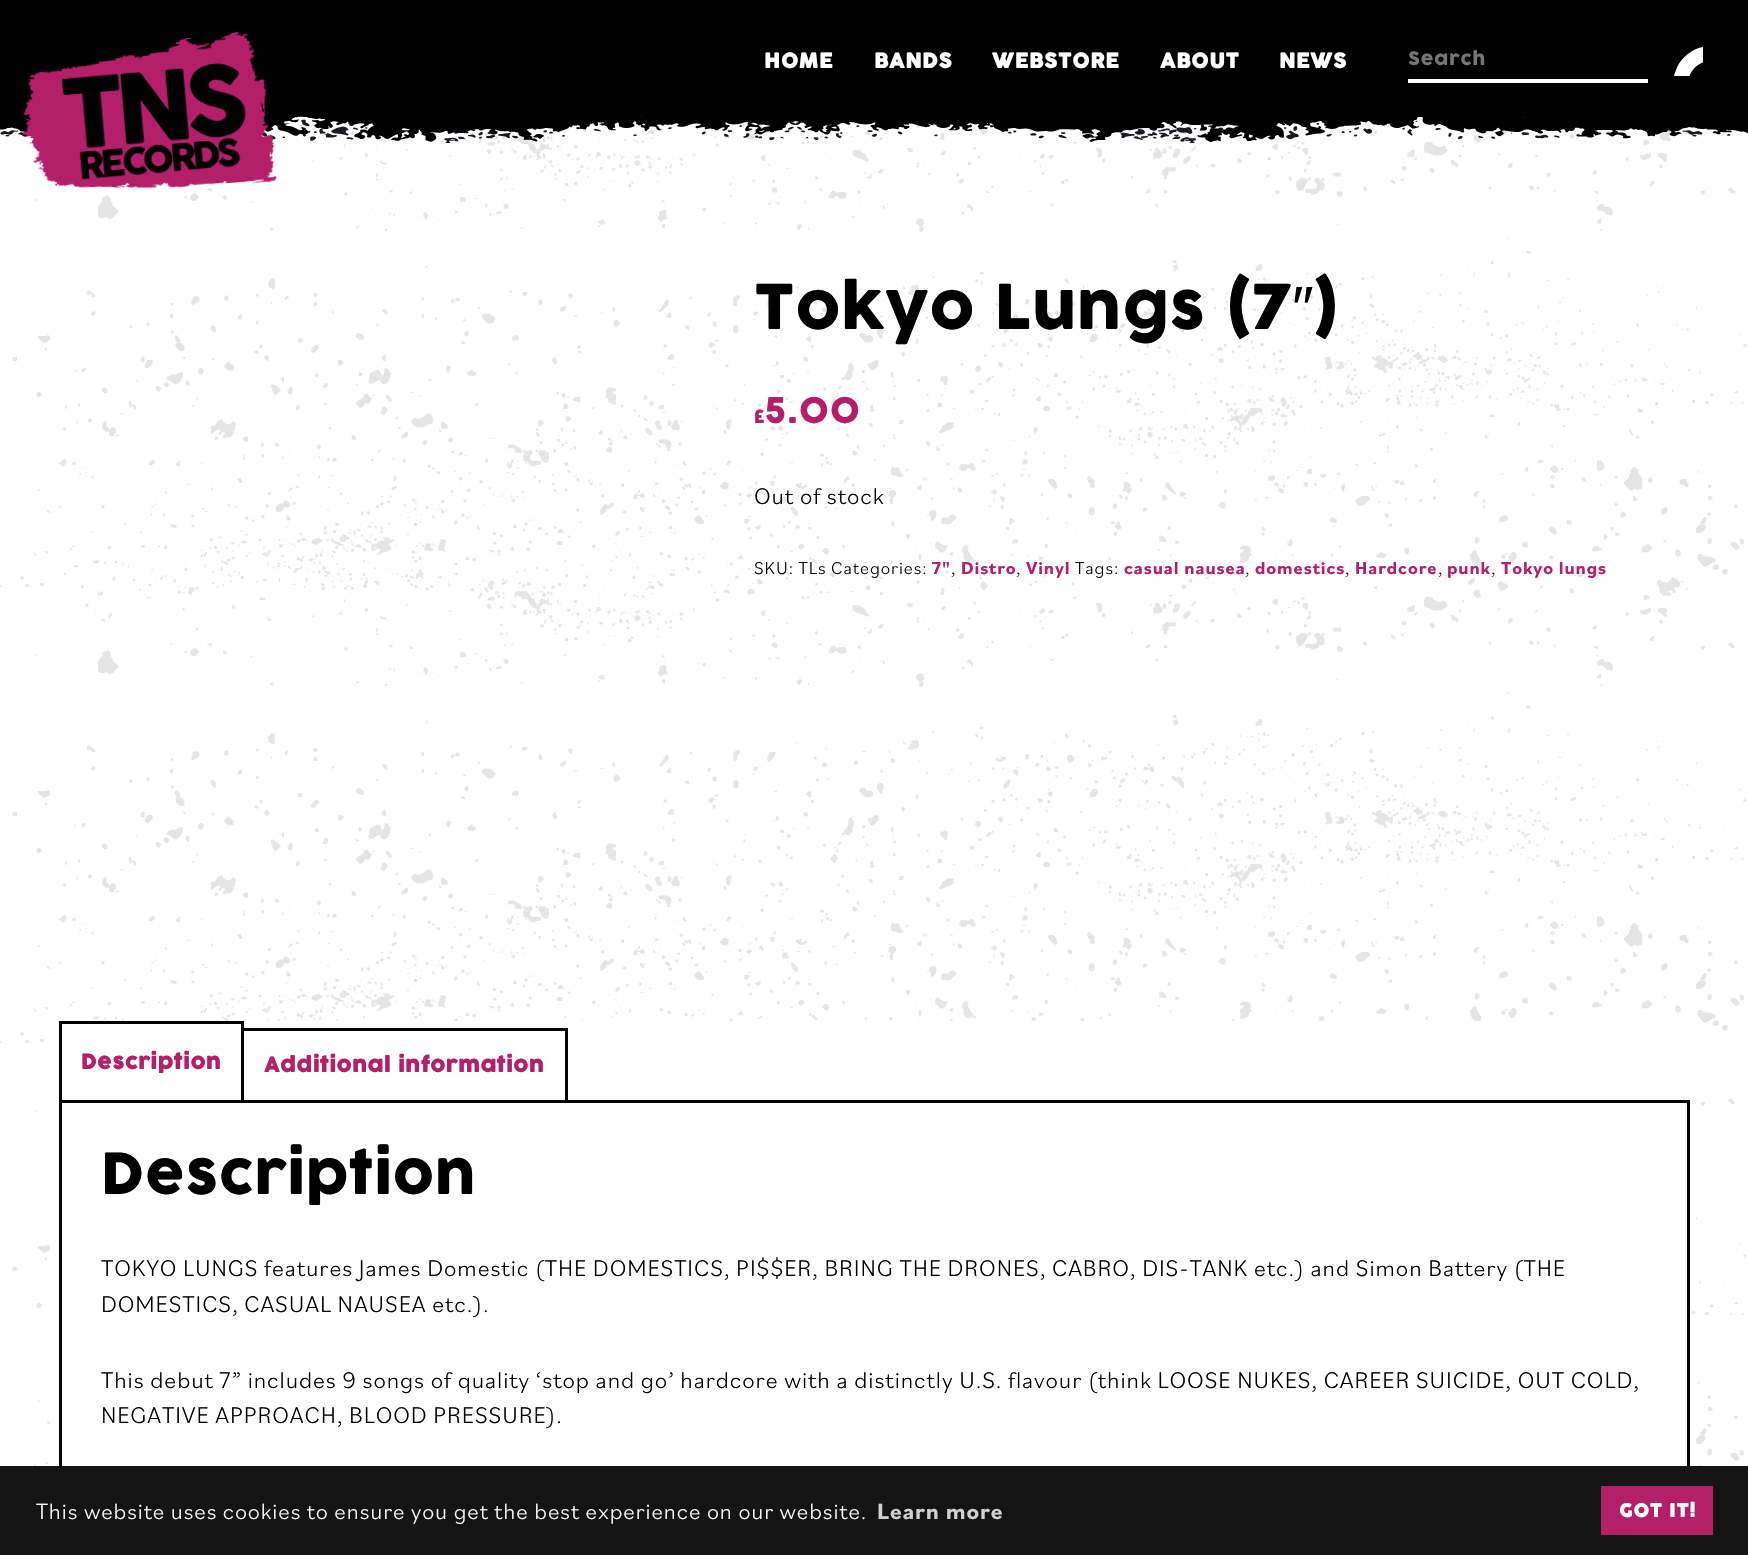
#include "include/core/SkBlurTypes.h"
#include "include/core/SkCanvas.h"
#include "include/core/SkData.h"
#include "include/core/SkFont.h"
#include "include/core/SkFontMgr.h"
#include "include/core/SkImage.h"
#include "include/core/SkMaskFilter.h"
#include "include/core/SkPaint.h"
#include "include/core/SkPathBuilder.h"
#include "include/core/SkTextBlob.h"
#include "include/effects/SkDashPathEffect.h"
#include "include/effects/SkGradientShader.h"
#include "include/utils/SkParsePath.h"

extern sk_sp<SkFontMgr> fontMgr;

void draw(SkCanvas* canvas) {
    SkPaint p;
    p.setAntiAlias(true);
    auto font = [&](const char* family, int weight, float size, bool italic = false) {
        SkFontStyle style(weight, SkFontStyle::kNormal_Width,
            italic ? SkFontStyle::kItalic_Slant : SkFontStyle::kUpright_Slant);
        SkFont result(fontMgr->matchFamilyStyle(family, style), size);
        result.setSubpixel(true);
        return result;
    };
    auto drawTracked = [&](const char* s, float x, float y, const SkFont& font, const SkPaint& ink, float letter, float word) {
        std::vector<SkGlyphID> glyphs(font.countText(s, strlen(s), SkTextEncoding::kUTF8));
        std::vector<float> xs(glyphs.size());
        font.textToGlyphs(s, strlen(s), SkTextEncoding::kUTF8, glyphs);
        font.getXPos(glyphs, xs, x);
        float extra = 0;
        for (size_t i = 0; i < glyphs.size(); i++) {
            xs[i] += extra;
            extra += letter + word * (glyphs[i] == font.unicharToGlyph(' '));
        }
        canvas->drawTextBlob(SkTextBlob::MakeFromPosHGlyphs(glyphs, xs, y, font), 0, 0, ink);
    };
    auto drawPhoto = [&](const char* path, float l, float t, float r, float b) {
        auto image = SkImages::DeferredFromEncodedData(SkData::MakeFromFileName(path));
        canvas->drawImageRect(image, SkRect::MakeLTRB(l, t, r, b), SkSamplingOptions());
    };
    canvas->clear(0xFFFFFFFF);
    drawPhoto("media/1.png", 0, 117, 1748, 1466);
    p.setColor(0xFF000000);
    canvas->drawRect(SkRect::MakeLTRB(0, 0, 1748, 113), p);
    drawPhoto("media/3.png", 0, 113, 1748, 143);
    drawPhoto("media/2.png", 22, 31, 277, 189);
    auto font1 = font("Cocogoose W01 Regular", 700, 20);
    p.setColor(0xFFFFFFFF);
    {
        const struct { const char* s; float x, y; } items[] = {
            {"HOME", 764, 68},
            {"BANDS", 874, 68},
            {"WEBSTORE", 992, 68},
            {"ABOUT", 1160, 68},
            {"NEWS", 1279, 68},
        };
        for (auto [s, x, y] : items) {
            drawTracked(s, x, y, font1, p, 0.9f, 0);
        }
    }
    canvas->drawRect(SkRect::MakeLTRB(1408, 79, 1648, 83), p);
    auto font2 = font("Cocogoose W01 Regular", 400, 18);
    p.setColor(0xFF757575);
    drawTracked("Search", 1408, 65, font2, p, 0.9f, 0);
    canvas->save();
    canvas->clipRect(SkRect::MakeLTRB(1673, 46, 1703, 76));
    p.setColor(0xFFFFFFFF);
    canvas->drawPath(SkPathBuilder().moveTo(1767, 129).lineTo(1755, 117).cubicTo(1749, 111, 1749, 109, 1742, 109).cubicTo(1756, 92, 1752, 65, 1733, 53).cubicTo(1722, 46, 1708, 44, 1696, 49).cubicTo(1687, 53, 1679, 61, 1676, 70).cubicTo(1660, 108, 1705, 140, 1736, 116).cubicTo(1736, 123, 1737, 123, 1743, 128).lineTo(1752, 138).cubicTo(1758, 144, 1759, 143, 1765, 138).cubicTo(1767, 135, 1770, 132, 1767, 129).close().moveTo(1712, 109).cubicTo(1680, 109, 1680, 61, 1712, 61).cubicTo(1743, 61, 1743, 109, 1712, 109).close().detach(), p);
    canvas->restore();
    auto font3 = font("Cocogoose W01 Regular", 400, 61);
    p.setColor(0xFF000000);
    drawTracked("Tokyo Lungs (7", 754, 329, font3, p, 0.9f, 0);
    auto font4 = font("Liberation Sans", 400, 61);
    drawTracked("″", 1292, 329, font4, p, 0.9f, 0);
    drawTracked(")", 1315, 329, font3, p, 0.9f, 0);
    p.setColor(0xFFB41F6A);
    drawTracked("£", 754, 423, font2, p, 0.9f, 0);
    auto font5 = font("Cocogoose W01 Regular", 400, 35);
    drawTracked("5.00", 765, 423, font5, p, 0.9f, 0);
    auto font6 = font("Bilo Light", 300, 23.75f);
    p.setColor(0xFF000000);
    drawTracked("Out of stock", 754, 504, font6, p, 0.9f, 0);
    auto font7 = font("Bilo Light", 300, 18);
    drawTracked("SKU: TLs Categories:", 754, 574, font7, p, 0.9f, 0);
    auto font8 = font("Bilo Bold", 700, 18);
    p.setColor(0xFFB41F6A);
    drawTracked("7\"", 932, 574, font8, p, 0.9f, 0);
    p.setColor(0xFF000000);
    drawTracked(",", 951, 574, font7, p, 0.9f, 0);
    p.setColor(0xFFB41F6A);
    drawTracked("Distro", 961, 574, font8, p, 0.9f, 0);
    p.setColor(0xFF000000);
    drawTracked(",", 1016, 574, font7, p, 0.9f, 0);
    p.setColor(0xFFB41F6A);
    drawTracked("Vinyl", 1026, 574, font8, p, 0.9f, 0);
    p.setColor(0xFF000000);
    drawTracked("Tags:", 1075, 574, font7, p, 0.9f, 0);
    p.setColor(0xFFB41F6A);
    drawTracked("casual nausea", 1124, 574, font8, p, 0.9f, 0);
    p.setColor(0xFF000000);
    drawTracked(",", 1245, 574, font7, p, 0.9f, 0);
    p.setColor(0xFFB41F6A);
    drawTracked("domestics", 1255, 574, font8, p, 0.9f, 0);
    p.setColor(0xFF000000);
    drawTracked(",", 1345, 574, font7, p, 0.9f, 0);
    p.setColor(0xFFB41F6A);
    drawTracked("Hardcore", 1355, 574, font8, p, 0.9f, 0);
    p.setColor(0xFF000000);
    drawTracked(",", 1438, 574, font7, p, 0.9f, 0);
    p.setColor(0xFFB41F6A);
    drawTracked("punk", 1447, 574, font8, p, 0.9f, 0);
    p.setColor(0xFF000000);
    drawTracked(",", 1491, 574, font7, p, 0.9f, 0);
    p.setColor(0xFFB41F6A);
    drawTracked("Tokyo lungs", 1501, 574, font8, p, 0.9f, 0);
    p.setColor(0xFFFFFFFF);
    canvas->drawRect(SkRect::MakeLTRB(63, 1021, 1689, 1100), p);
    canvas->drawRect(SkRect::MakeLTRB(62, 1103, 1687, 1466), p);
    p.setStyle(SkPaint::kStroke_Style);
    p.setStrokeWidth(3);
    p.setColor(0xFF000000);
    canvas->drawRect(SkRect::MakeLTRB(60.5f, 1101.5f, 1688.5f, 1549.5f), p);
    canvas->drawRect(SkRect::MakeLTRB(60.5f, 1022.5f, 242.5f, 1101.5f), p);
    p.setStyle(SkPaint::kFill_Style);
    p.setColor(0xFFB41F6A);
    drawTracked("Description", 81, 1069, font1, p, 0.9f, 0);
    p.setStyle(SkPaint::kStroke_Style);
    p.setColor(0xFF000000);
    canvas->drawRect(SkRect::MakeLTRB(242.5f, 1029.5f, 566.5f, 1101.5f), p);
    p.setStyle(SkPaint::kFill_Style);
    p.setColor(0xFFB41F6A);
    drawTracked("Additional information", 264, 1072, font1, p, 0.9f, 0);
    auto font9 = font("Cocogoose W01 Regular", 400, 56);
    p.setColor(0xFF000000);
    drawTracked("Description", 101, 1194, font9, p, 0.9f, 0);
    {
        const struct { const char* s; float x, y; } items[] = {
            {"TOKYO LUNGS features James Domestic (THE DOMESTICS, PI$$ER, BRING THE DRONES, CABRO, DIS-TANK etc.) and Simon Battery (THE", 101, 1276},
            {"DOMESTICS, CASUAL NAUSEA etc.).", 101, 1312},
            {"This debut 7” includes 9 songs of quality ‘stop and go’ hardcore with a distinctly U.S. flavour (think LOOSE NUKES, CAREER SUICIDE, OUT COLD,", 101, 1388},
            {"NEGATIVE APPROACH, BLOOD PRESSURE).", 101, 1423},
        };
        for (auto [s, x, y] : items) {
            drawTracked(s, x, y, font6, p, 0.9f, 0);
        }
    }
    p.setColor(0xFF141414);
    canvas->drawRect(SkRect::MakeLTRB(0, 1466, 1748, 1555), p);
    auto font10 = font("Bilo Light", 300, 23);
    p.setColor(0xFFFFFFFF);
    drawTracked("This website uses cookies to ensure you get the best experience on our website.", 36, 1519, font10, p, 0.9f, 0);
    auto font11 = font("Bilo Bold", 700, 23);
    p.setColor(0xFFD0D0D0);
    drawTracked("Learn more", 877, 1519, font11, p, 0.9f, 0);
    p.setColor(0xFFB32069);
    canvas->drawRect(SkRect::MakeLTRB(1601, 1486, 1713, 1535), p);
    auto font12 = font("Cocogoose W01 Regular", 700, 18);
    p.setColor(0xFFFFFFFF);
    drawTracked("GOT IT!", 1619, 1517, font12, p, 0.9f, 0);
}
